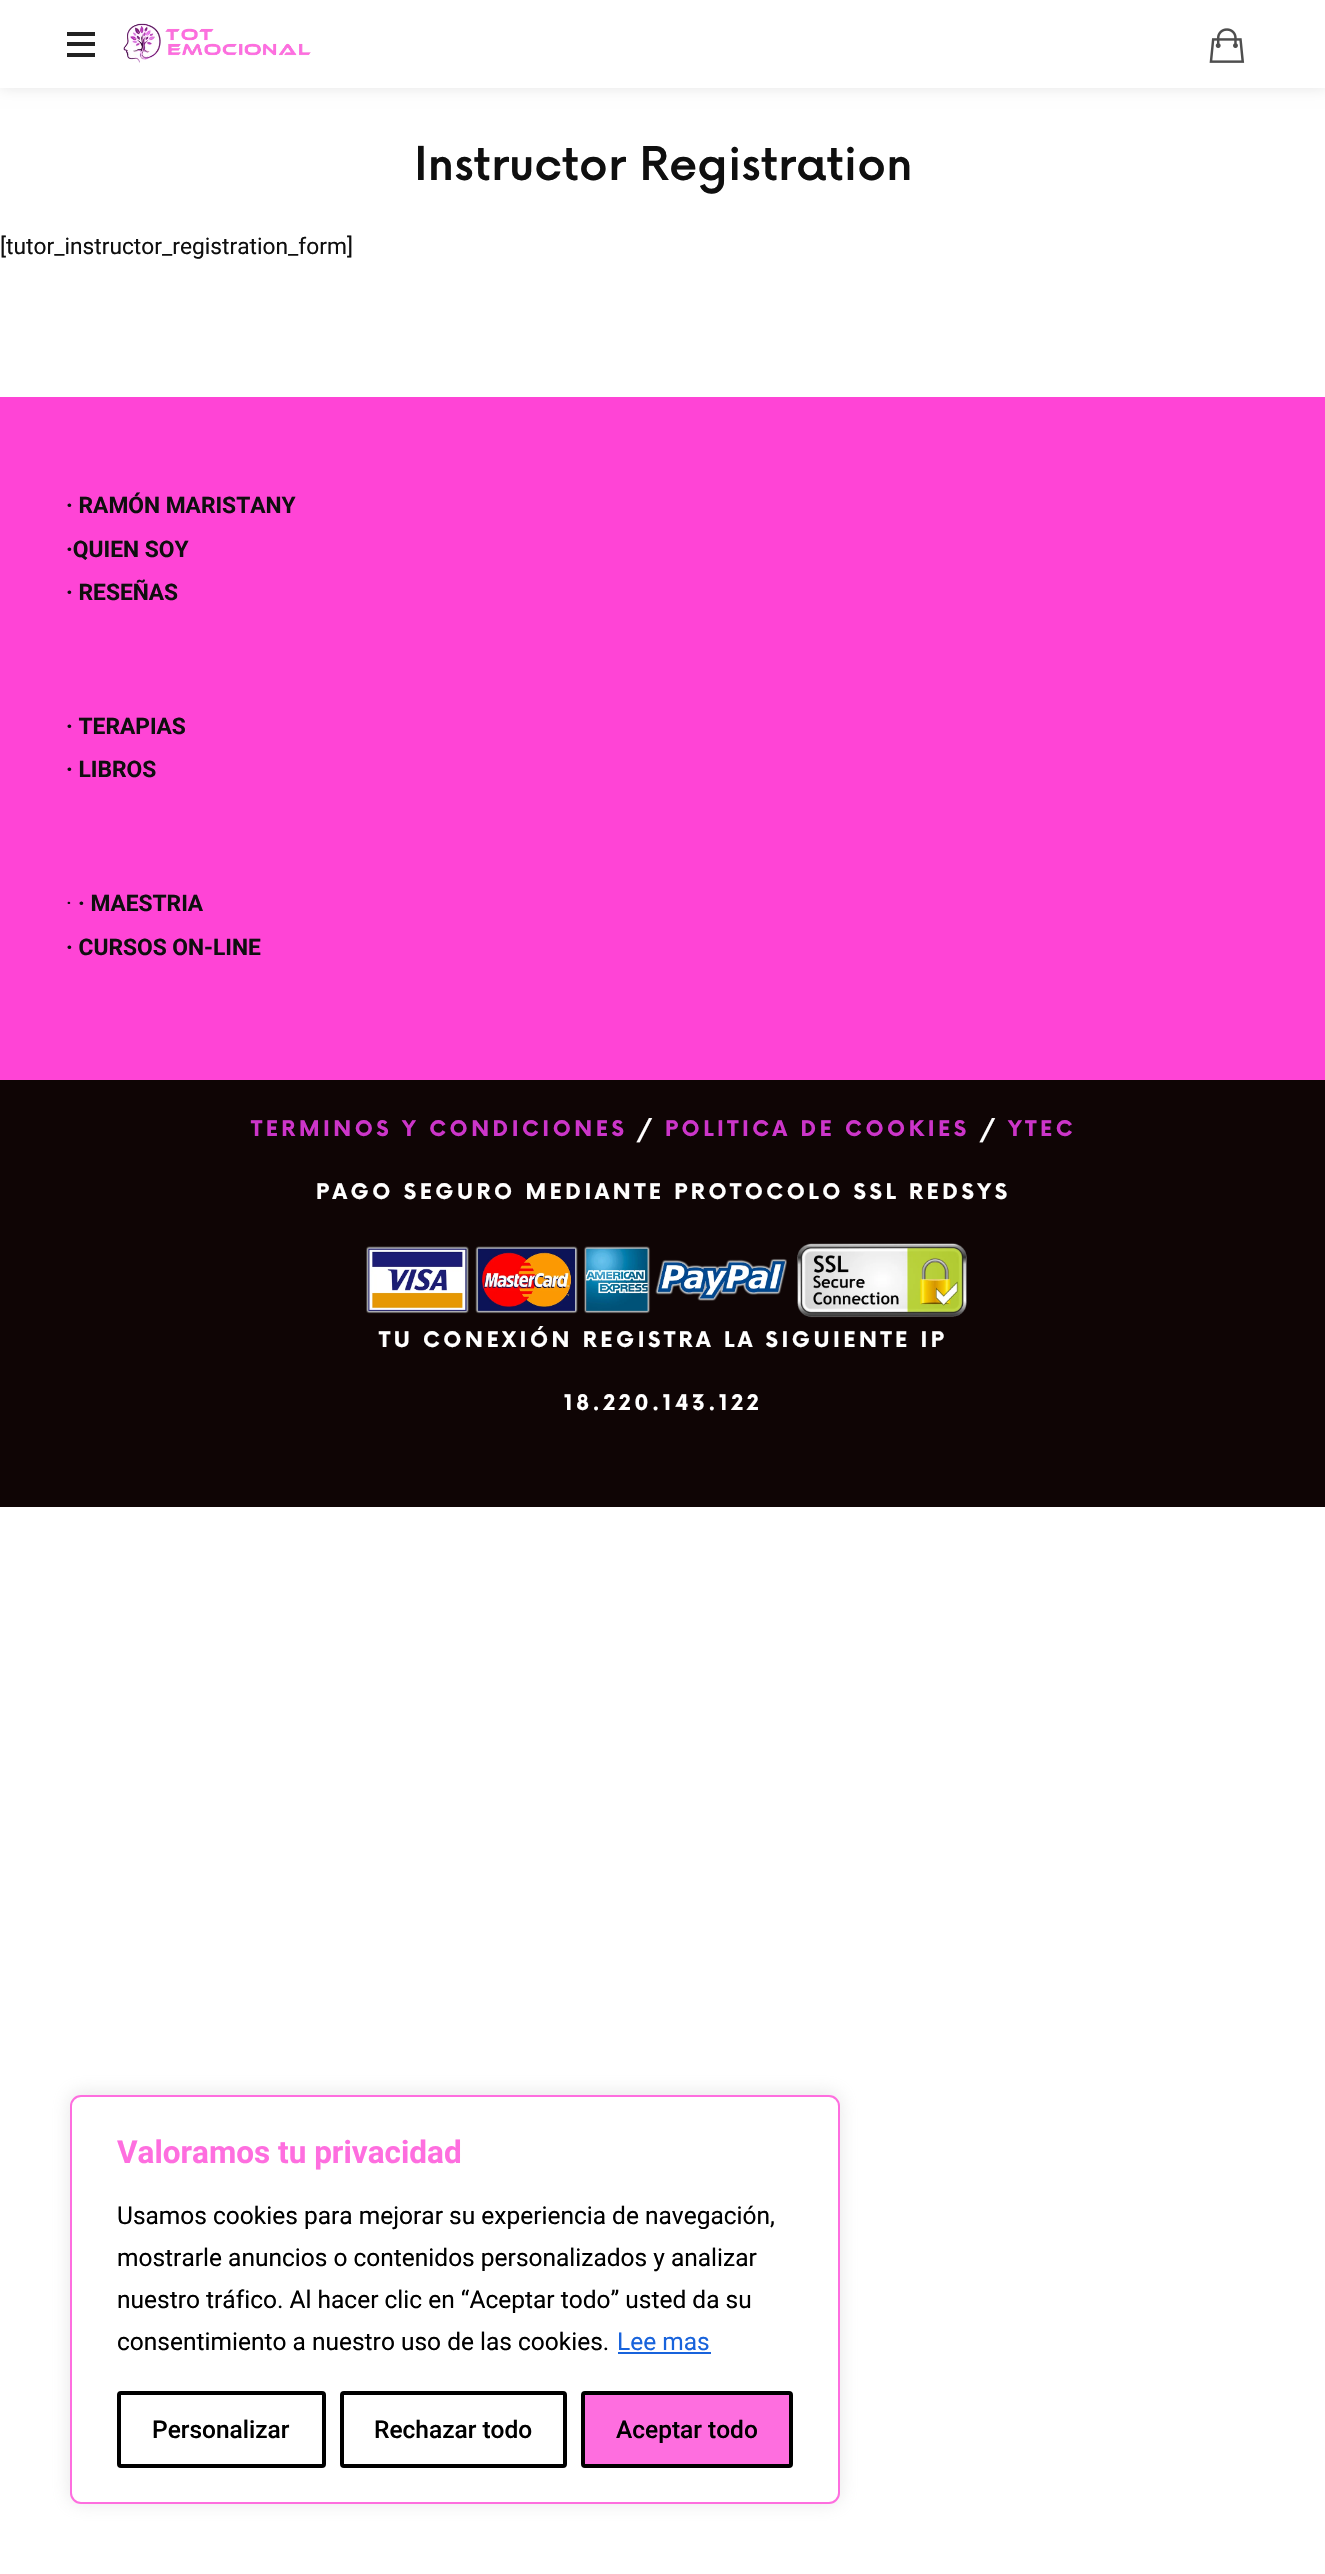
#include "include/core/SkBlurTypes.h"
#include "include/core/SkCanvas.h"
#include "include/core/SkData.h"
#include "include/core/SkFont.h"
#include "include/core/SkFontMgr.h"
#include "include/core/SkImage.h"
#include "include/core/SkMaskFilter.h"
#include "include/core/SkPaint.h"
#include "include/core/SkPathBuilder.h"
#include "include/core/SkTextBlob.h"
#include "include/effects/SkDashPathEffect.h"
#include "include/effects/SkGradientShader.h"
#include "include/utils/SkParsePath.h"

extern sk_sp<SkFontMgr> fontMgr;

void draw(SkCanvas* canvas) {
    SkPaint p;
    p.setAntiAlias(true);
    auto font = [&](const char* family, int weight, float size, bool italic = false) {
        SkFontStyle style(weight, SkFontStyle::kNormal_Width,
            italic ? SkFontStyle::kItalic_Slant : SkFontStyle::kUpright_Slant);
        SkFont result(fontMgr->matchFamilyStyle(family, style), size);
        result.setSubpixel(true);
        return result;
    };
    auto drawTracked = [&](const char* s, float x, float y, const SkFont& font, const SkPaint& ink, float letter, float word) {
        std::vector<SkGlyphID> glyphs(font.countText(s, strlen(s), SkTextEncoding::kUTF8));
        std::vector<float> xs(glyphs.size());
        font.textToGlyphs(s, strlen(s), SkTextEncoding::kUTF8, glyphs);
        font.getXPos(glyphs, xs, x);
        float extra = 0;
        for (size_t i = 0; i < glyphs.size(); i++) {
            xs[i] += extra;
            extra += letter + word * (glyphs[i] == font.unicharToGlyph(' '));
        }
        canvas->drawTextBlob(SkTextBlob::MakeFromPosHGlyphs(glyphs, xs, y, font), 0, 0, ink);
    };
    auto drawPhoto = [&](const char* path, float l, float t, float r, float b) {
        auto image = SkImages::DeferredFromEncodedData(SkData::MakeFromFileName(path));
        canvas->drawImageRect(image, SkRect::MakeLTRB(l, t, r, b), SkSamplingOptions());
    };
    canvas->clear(0xFFFFFFFF);
    p.setColor(0x1A000000);
    p.setMaskFilter(SkMaskFilter::MakeBlur(kNormal_SkBlurStyle, 7));
    canvas->drawRect(SkRect::MakeLTRB(0, 0, 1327, 88), p);
    p.setMaskFilter(nullptr);
    p.setColor(0xFFFFFFFF);
    canvas->drawRect(SkRect::MakeLTRB(0, 0, 1325, 88), p);
    drawPhoto("media/1.png", 123, 23, 311, 63);
    {
        const struct { float l, t, r, b; SkColor color; } items[] = {
            {67, 42, 95, 46, 0xFF222222},
            {67, 32, 95, 36, 0xFF222222},
            {67, 53, 95, 57, 0xFF222222},
        };
        for (auto [l, t, r, b, color] : items) {
            p.setColor(color);
            canvas->drawRect(SkRect::MakeLTRB(l, t, r, b), p);
        }
    }
    drawPhoto("media/2.png", 1209, 28, 1245, 63);
    auto font1 = font("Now", 500, 45.5f);
    p.setColor(0xFF0F0F0F);
    canvas->drawString("Instructor Registration", 414, 180, font1, p);
    auto font2 = font("Roboto", 400, 22.75f);
    canvas->drawString("[tutor_instructor_registration_form]", 0, 254, font2, p);
    p.setColor(0xFFFF44D6);
    canvas->drawRect(SkRect::MakeLTRB(0, 397, 1325, 1080), p);
    auto font3 = font("Roboto", 700, 22.75f);
    p.setColor(0xFF0F0F0F);
    {
        const struct { const char* s; float x, y; } items[] = {
            {"· RAMÓN MARISTANY", 66, 513},
            {"·QUIEN SOY", 66, 557},
            {"· RESEÑAS", 66, 600},
            {"· TERAPIAS", 66, 734},
            {"· LIBROS", 66, 777},
        };
        for (auto [s, x, y] : items) {
            canvas->drawString(s, x, y, font3, p);
        }
    }
    canvas->drawString("·", 66, 911, font2, p);
    canvas->drawString("· MAESTRIA", 78, 911, font3, p);
    canvas->drawString("· CURSOS ON-LINE", 66, 955, font3, p);
    p.setColor(0xFF0F0505);
    canvas->drawRect(SkRect::MakeLTRB(0, 1080, 1325, 1507), p);
    auto font4 = font("Now", 700, 21);
    p.setColor(0xFFCC35C9);
    drawTracked("TERMINOS Y CONDICIONES", 251, 1136, font4, p, 3.5f, 0);
    p.setColor(0xFFFFFFFF);
    drawTracked("/", 637, 1136, font4, p, 3.5f, 0);
    p.setColor(0xFFCC35C9);
    drawTracked("POLITICA DE COOKIES", 665, 1136, font4, p, 3.5f, 0);
    p.setColor(0xFFFFFFFF);
    drawTracked("/", 980, 1136, font4, p, 3.5f, 0);
    p.setColor(0xFFCC35C9);
    drawTracked("YTEC", 1008, 1136, font4, p, 3.5f, 0);
    p.setColor(0xFFFFFFFF);
    drawTracked("PAGO SEGURO MEDIANTE PROTOCOLO SSL REDSYS", 316, 1199, font4, p, 3.5f, 0);
    drawPhoto("media/3.png", 366, 1246, 787, 1314);
    drawPhoto("media/4.png", 797, 1243, 967, 1318);
    drawTracked("TU CONEXIÓN REGISTRA LA SIGUIENTE IP", 379, 1347, font4, p, 3.5f, 0);
    drawTracked("18.220.143.122", 564, 1410, font4, p, 3.5f, 0);
    p.setColor(0x4DACABAB);
    p.setMaskFilter(SkMaskFilter::MakeBlur(kNormal_SkBlurStyle, 9));
    canvas->drawRoundRect(SkRect::MakeLTRB(70, 2093, 840, 2503), 11, 11, p);
    p.setMaskFilter(nullptr);
    p.setColor(0xFFFFFFFF);
    canvas->drawRoundRect(SkRect::MakeLTRB(71, 2096, 839, 2503), 10, 10, p);
    p.setStyle(SkPaint::kStroke_Style);
    p.setStrokeWidth(2);
    p.setColor(0xFFFE6EDF);
    canvas->drawRoundRect(SkRect::MakeLTRB(71, 2096, 839, 2503), 10, 10, p);
    auto font5 = font("Roboto", 700, 31.5f);
    p.setStyle(SkPaint::kFill_Style);
    canvas->drawString("Valoramos tu privacidad", 117, 2163, font5, p);
    auto font6 = font("Roboto", 400, 24.5f);
    p.setColor(0xFF000000);
    {
        const struct { const char* s; float x, y; } items[] = {
            {"Usamos cookies para mejorar su experiencia de navegación,", 117, 2224},
            {"mostrarle anuncios o contenidos personalizados y analizar", 117, 2266},
            {"nuestro tráfico. Al hacer clic en “Aceptar todo” usted da su", 117, 2308},
            {"consentimiento a nuestro uso de las cookies.", 117, 2350},
        };
        for (auto [s, x, y] : items) {
            canvas->drawString(s, x, y, font6, p);
        }
    }
    p.setColor(0xFF1863DC);
    canvas->drawString("Lee mas", 617, 2350, font6, p);
    canvas->drawRect(SkRect::MakeLTRB(618, 2352, 711, 2354), p);
    p.setStyle(SkPaint::kStroke_Style);
    p.setStrokeWidth(4);
    p.setColor(0xFF000000);
    canvas->drawRoundRect(SkRect::MakeLTRB(119, 2393, 324, 2466), 2, 2, p);
    auto font7 = font("Roboto", 500, 24.5f);
    p.setStyle(SkPaint::kFill_Style);
    canvas->drawString("Personalizar", 152, 2438, font7, p);
    p.setStyle(SkPaint::kStroke_Style);
    canvas->drawRoundRect(SkRect::MakeLTRB(342, 2393, 565, 2466), 2, 2, p);
    p.setStyle(SkPaint::kFill_Style);
    canvas->drawString("Rechazar todo", 374, 2438, font7, p);
    p.setColor(0xFFFE6EDF);
    canvas->drawRoundRect(SkRect::MakeLTRB(583, 2393, 791, 2466), 2, 2, p);
    p.setStyle(SkPaint::kStroke_Style);
    p.setColor(0xFF000000);
    canvas->drawRoundRect(SkRect::MakeLTRB(583, 2393, 791, 2466), 2, 2, p);
    p.setStyle(SkPaint::kFill_Style);
    canvas->drawString("Aceptar todo", 616, 2438, font7, p);
}
